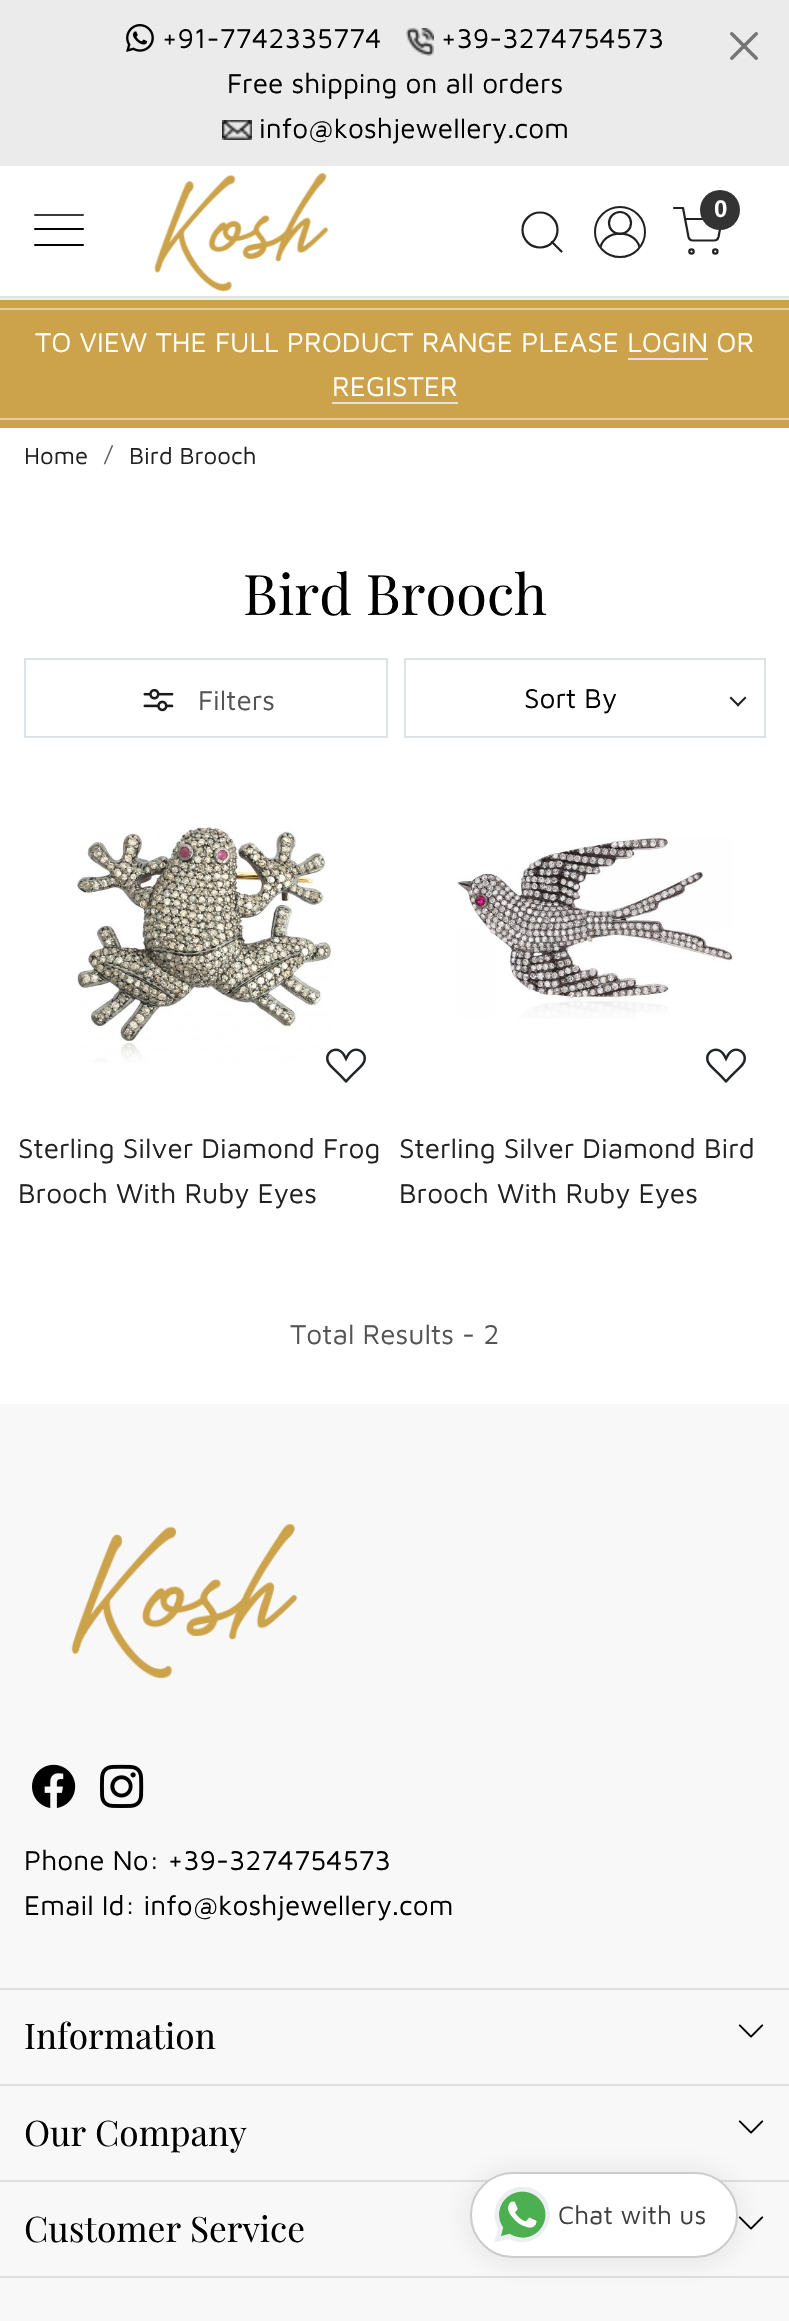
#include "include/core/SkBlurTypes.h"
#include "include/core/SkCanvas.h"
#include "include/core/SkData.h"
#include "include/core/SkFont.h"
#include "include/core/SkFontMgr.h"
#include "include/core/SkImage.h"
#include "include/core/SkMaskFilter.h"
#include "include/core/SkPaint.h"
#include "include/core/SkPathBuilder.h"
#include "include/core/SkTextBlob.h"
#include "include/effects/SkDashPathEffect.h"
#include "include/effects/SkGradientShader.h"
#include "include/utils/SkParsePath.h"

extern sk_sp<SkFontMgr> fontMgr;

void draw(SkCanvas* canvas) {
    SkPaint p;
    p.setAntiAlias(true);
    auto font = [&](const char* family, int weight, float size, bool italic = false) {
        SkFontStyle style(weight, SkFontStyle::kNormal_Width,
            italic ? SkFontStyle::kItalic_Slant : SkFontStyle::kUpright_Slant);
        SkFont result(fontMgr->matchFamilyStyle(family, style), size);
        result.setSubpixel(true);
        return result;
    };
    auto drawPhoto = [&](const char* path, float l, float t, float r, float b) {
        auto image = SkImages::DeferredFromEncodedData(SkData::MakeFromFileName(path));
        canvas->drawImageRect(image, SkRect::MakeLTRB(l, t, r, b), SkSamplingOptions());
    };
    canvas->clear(0xFFFFFFFF);
    p.setColor(0xFFEBEBEB);
    canvas->drawRect(SkRect::MakeLTRB(0, 0, 789, 166), p);
    drawPhoto("media/1.png", 126, 24, 154, 52);
    auto font1 = font("Maven Pro", 400, 28);
    p.setColor(0xFF000000);
    canvas->drawString("+91-7742335774", 162, 48, font1, p);
    drawPhoto("media/2.png", 406, 28, 434, 56);
    canvas->drawString("+39-3274754573", 441, 48, font1, p);
    canvas->drawString("Free shipping on all orders", 227, 93, font1, p);
    drawPhoto("media/3.png", 222, 120, 252, 140);
    canvas->drawString("info@koshjewellery.com", 259, 138, font1, p);
    drawPhoto("media/4.png", 730, 32, 758, 60);
    p.setColor(0xFFEEEEEE);
    canvas->drawRect(SkRect::MakeLTRB(0, 298, 789, 300), p);
    drawPhoto("media/5.png", 154, 173, 329, 292);
    p.setStyle(SkPaint::kStroke_Style);
    p.setStrokeWidth(2.2f);
    p.setColor(0xFF212121);
    canvas->drawCircle(540, 230, 17.5f, p);
    p.setStrokeCap(SkPaint::kRound_Cap);
    p.setStrokeJoin(SkPaint::kRound_Join);
    canvas->drawPath(SkPathBuilder().moveTo(561.5f, 251.5f).lineTo(552, 242).detach(), p);
    p.setStrokeWidth(2);
    p.setStrokeCap(SkPaint::kButt_Cap);
    p.setStrokeJoin(SkPaint::kMiter_Join);
    canvas->drawCircle(620, 232, 25, p);
    canvas->save();
    canvas->clipPath(SkPathBuilder().moveTo(620, 208).cubicTo(633.5f, 208, 644, 218.5f, 644, 232).cubicTo(644, 245.5f, 633.5f, 256, 620, 256).cubicTo(606.5f, 256, 596, 245.5f, 596, 232).cubicTo(596, 218.5f, 606.5f, 208, 620, 208).close().detach(), true);
    p.setStrokeWidth(2.2f);
    p.setStrokeCap(SkPaint::kSquare_Cap);
    canvas->drawPath(SkPathBuilder().moveTo(600, 252).cubicTo(600, 227.5f, 640, 227.5f, 640, 252).detach(), p);
    canvas->restore();
    p.setStrokeCap(SkPaint::kButt_Cap);
    canvas->drawCircle(620, 223, 11, p);
    p.setStrokeCap(SkPaint::kRound_Cap);
    p.setStrokeJoin(SkPaint::kRound_Join);
    canvas->drawPath(SkPathBuilder().moveTo(674, 208).lineTo(683, 208).lineTo(688.5f, 237).cubicTo(689, 239, 691, 240.5f, 693, 240.5f).lineTo(714, 240.5f).cubicTo(716, 240.5f, 718, 239, 718.5f, 237).lineTo(722, 219).lineTo(685, 219).detach(), p);
    p.setStyle(SkPaint::kFill_Style);
    p.setColor(0xFF333333);
    canvas->drawCircle(720, 210, 20, p);
    auto font2 = font("Liberation Sans", 700, 24);
    p.setColor(0xFFFFFFFF);
    canvas->drawString("0", 714, 217, font2, p);
    p.setStyle(SkPaint::kStroke_Style);
    p.setStrokeCap(SkPaint::kButt_Cap);
    p.setStrokeJoin(SkPaint::kMiter_Join);
    p.setColor(0xFF212121);
    canvas->drawCircle(691.5f, 251.5f, 2.2f, p);
    canvas->drawCircle(715.3f, 251.5f, 2.2f, p);
    p.setStyle(SkPaint::kFill_Style);
    p.setColor(0xFF000000);
    canvas->drawRoundRect(SkRect::MakeLTRB(34, 244, 84, 246), 1, 1, p);
    canvas->drawRoundRect(SkRect::MakeLTRB(34, 228, 84, 230), 1, 1, p);
    p.setColor(0xFF343A40);
    canvas->drawRoundRect(SkRect::MakeLTRB(34, 214, 84, 216), 1, 1, p);
    {
        const struct { float l, t, r, b; SkColor color; } items[] = {
            {0, 296, 789, 298, 0xFFDEE2E6},
            {0, 300, 789, 428, 0xFFCCA34B},
            {0, 308, 789, 310, 0xFFE4CE9F},
        };
        for (auto [l, t, r, b, color] : items) {
            p.setColor(color);
            canvas->drawRect(SkRect::MakeLTRB(l, t, r, b), p);
        }
    }
    p.setColor(0xFFFFFFFF);
    canvas->drawString("TO VIEW THE FULL PRODUCT RANGE PLEASE LOGIN OR", 35, 352, font1, p);
    p.setColor(0xFFDEE2E6);
    canvas->drawRect(SkRect::MakeLTRB(628, 358, 708, 360), p);
    p.setColor(0xFFFFFFFF);
    canvas->drawString("REGISTER", 332, 396, font1, p);
    p.setColor(0xFFDEE2E6);
    canvas->drawRect(SkRect::MakeLTRB(332, 402, 458, 404), p);
    p.setColor(0xFFE4CE9F);
    canvas->drawRect(SkRect::MakeLTRB(0, 418, 789, 420), p);
    auto font3 = font("Maven Pro", 400, 24);
    p.setColor(0xFF212121);
    canvas->drawString("Home", 24, 464, font3, p);
    auto font4 = font("Maven Pro", 400, 22);
    p.setColor(0xFF595C5F);
    canvas->drawString("/", 104, 462, font4, p);
    p.setColor(0xFF212121);
    canvas->drawString("Bird Brooch", 129, 464, font3, p);
    auto font5 = font("Playfair Display", 400, 56);
    p.setColor(0xFF000000);
    canvas->drawString("Bird Brooch", 243, 615, font5, p);
    p.setStyle(SkPaint::kStroke_Style);
    p.setStrokeWidth(2);
    p.setColor(0xFFDEE2E6);
    canvas->drawRect(SkRect::MakeLTRB(25, 659, 387, 737), p);
    drawPhoto("media/6.png", 143, 688, 174, 712);
    p.setStyle(SkPaint::kFill_Style);
    p.setColor(0xFF545454);
    canvas->drawString("Filters", 198, 710, font1, p);
    p.setStyle(SkPaint::kStroke_Style);
    p.setColor(0xFFDEE2E6);
    canvas->drawRect(SkRect::MakeLTRB(405, 659, 765, 737), p);
    p.setStyle(SkPaint::kFill_Style);
    p.setColor(0xFF000000);
    canvas->drawString("Sort By", 524, 708, font1, p);
    p.setColor(0xFF222222);
    canvas->drawPath(SkPathBuilder().moveTo(745, 696.5f).lineTo(746.5f, 698).lineTo(738, 706.5f).lineTo(736.5f, 705).close().detach(), p);
    canvas->drawPath(SkPathBuilder().moveTo(731, 696.5f).lineTo(739.5f, 705).lineTo(738, 706.5f).lineTo(729.5f, 698).close().detach(), p);
    drawPhoto("media/7.png", 77, 827, 332, 1063);
    drawPhoto("media/8.png", 326, 1048, 366, 1083);
    p.setColor(0xFF212121);
    canvas->drawString("Sterling Silver Diamond Frog", 18, 1158, font1, p);
    canvas->drawString("Brooch With Ruby Eyes", 18, 1203, font1, p);
    drawPhoto("media/9.png", 457, 837, 733, 1019);
    drawPhoto("media/10.png", 706, 1048, 746, 1083);
    canvas->drawString("Sterling Silver Diamond Bird", 399, 1158, font1, p);
    canvas->drawString("Brooch With Ruby Eyes", 399, 1203, font1, p);
    p.setColor(0xFF545454);
    canvas->drawString("Total Results - 2", 290, 1344, font1, p);
    p.setColor(0xFFF8F8F8);
    canvas->drawRect(SkRect::MakeLTRB(0, 1404, 789, 2321), p);
    drawPhoto("media/11.png", 71, 1524, 298, 1679);
    drawPhoto("media/12.png", 32, 1764, 76, 1808);
    drawPhoto("media/13.png", 100, 1764, 144, 1808);
    p.setColor(0xFF000000);
    canvas->drawString("Phone No: +39-3274754573", 24, 1870, font1, p);
    canvas->drawString("Email Id: info@koshjewellery.com", 24, 1915, font1, p);
    p.setColor(0xFFDEDEDE);
    canvas->drawRect(SkRect::MakeLTRB(0, 1988, 789, 1990), p);
    canvas->drawRect(SkRect::MakeLTRB(0, 2084, 789, 2086), p);
    auto font6 = font("Playfair Display", 400, 35.25f);
    p.setColor(0xFF000000);
    canvas->drawString("Information", 24, 2049, font6, p);
    drawPhoto("media/14.png", 738, 2024, 764, 2038);
    p.setColor(0xFFDEDEDE);
    canvas->drawRect(SkRect::MakeLTRB(0, 2180, 789, 2182), p);
    p.setColor(0xFF000000);
    canvas->drawString("Our Company", 24, 2146, font6, p);
    drawPhoto("media/14.png", 738, 2120, 764, 2134);
    p.setColor(0xFFDEDEDE);
    canvas->drawRect(SkRect::MakeLTRB(0, 2276, 789, 2278), p);
    p.setColor(0xFF000000);
    canvas->drawString("Customer Service", 24, 2242, font6, p);
    drawPhoto("media/14.png", 738, 2216, 764, 2230);
    p.setColor(0x1A202124);
    p.setMaskFilter(SkMaskFilter::MakeBlur(kNormal_SkBlurStyle, 15));
    canvas->drawRoundRect(SkRect::MakeLTRB(470, 2174, 738, 2260), 43, 43, p);
    p.setMaskFilter(nullptr);
    p.setColor(0xFFFFFFFF);
    canvas->drawRoundRect(SkRect::MakeLTRB(471, 2173, 737, 2257), 42, 42, p);
    p.setStyle(SkPaint::kStroke_Style);
    p.setColor(0xFFCCCCCC);
    canvas->drawRoundRect(SkRect::MakeLTRB(471, 2173, 737, 2257), 42, 42, p);
    drawPhoto("media/15.png", 494, 2186, 550, 2243);
    auto font7 = font("Maven Pro", 400, 26);
    p.setStyle(SkPaint::kFill_Style);
    p.setColor(0xFF404040);
    canvas->drawString("Chat with us", 558, 2224, font7, p);
}
